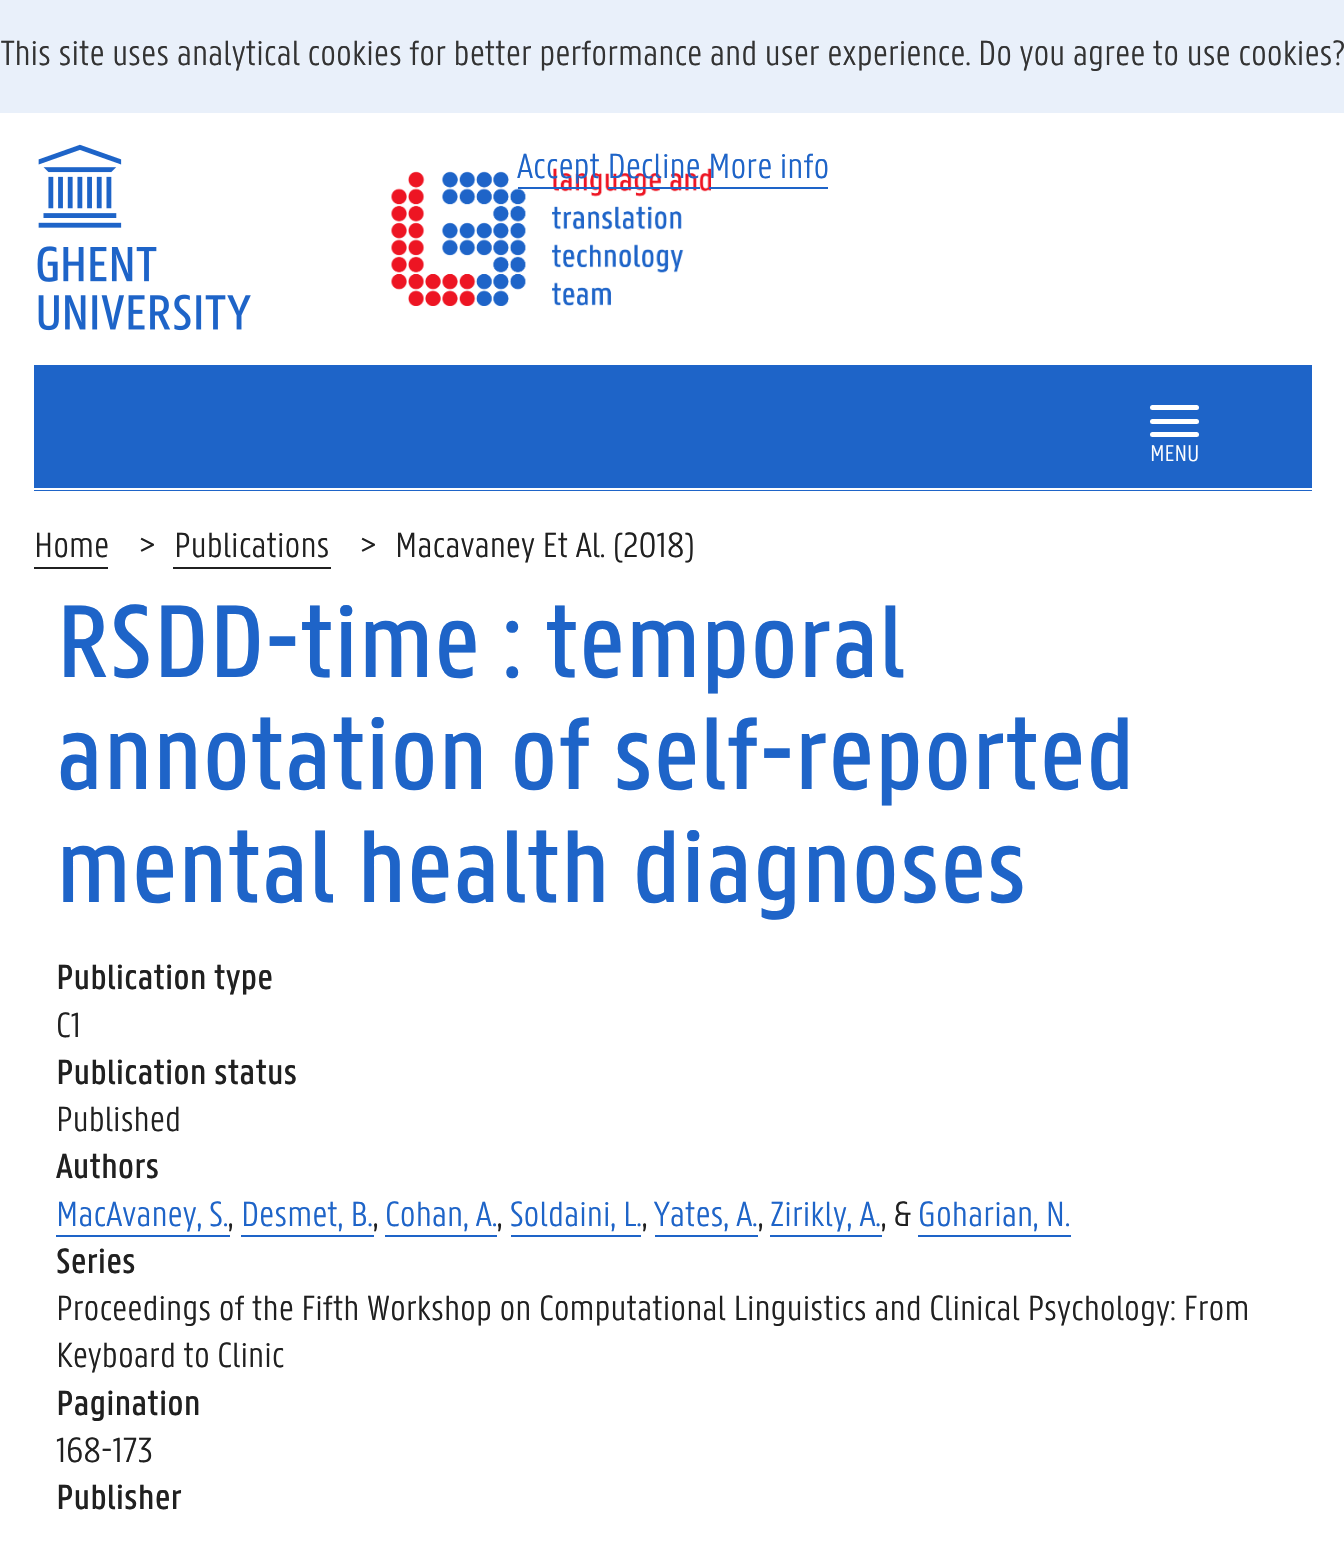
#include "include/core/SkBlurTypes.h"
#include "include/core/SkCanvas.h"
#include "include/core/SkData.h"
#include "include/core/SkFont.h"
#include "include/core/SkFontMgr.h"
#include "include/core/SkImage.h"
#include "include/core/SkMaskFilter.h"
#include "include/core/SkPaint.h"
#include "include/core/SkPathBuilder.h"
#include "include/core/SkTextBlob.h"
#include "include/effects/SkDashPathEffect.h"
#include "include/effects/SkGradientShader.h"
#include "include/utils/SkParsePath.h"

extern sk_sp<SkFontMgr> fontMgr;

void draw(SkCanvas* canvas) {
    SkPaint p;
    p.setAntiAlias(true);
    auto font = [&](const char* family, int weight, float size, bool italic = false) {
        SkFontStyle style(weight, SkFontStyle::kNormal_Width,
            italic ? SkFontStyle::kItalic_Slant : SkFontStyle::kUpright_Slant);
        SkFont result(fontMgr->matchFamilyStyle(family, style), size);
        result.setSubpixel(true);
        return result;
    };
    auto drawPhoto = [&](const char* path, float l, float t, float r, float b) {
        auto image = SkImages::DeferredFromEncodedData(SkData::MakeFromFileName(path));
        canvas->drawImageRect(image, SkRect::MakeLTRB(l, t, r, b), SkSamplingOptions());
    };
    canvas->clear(0xFFFFFFFF);
    p.setColor(0xFFE9F0FA);
    canvas->drawRect(SkRect::MakeLTRB(0, 0, 1344, 113), p);
    auto font1 = font("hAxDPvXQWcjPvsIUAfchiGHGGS", 300, 38.25f);
    p.setColor(0xFF333333);
    canvas->drawString("This site uses analytical cookies for better performance and user experience. Do you agree to use cookies?", 1, 65, font1, p);
    drawPhoto("media/2.png", 391, 168, 711, 306);
    p.setColor(0xFF1E64C8);
    canvas->drawString("Accept Decline More info", 517, 178, font1, p);
    {
        const struct { float l, t, r, b; SkColor color; } items[] = {
            {518, 187, 599, 189, 0xFF1E64C8},
            {608, 187, 700, 189, 0xFF1E64C8},
            {709, 187, 828, 189, 0xFF1E64C8},
            {34, 365, 1312, 491, 0xFF1E64C8},
        };
        for (auto [l, t, r, b, color] : items) {
            p.setColor(color);
            canvas->drawRect(SkRect::MakeLTRB(l, t, r, b), p);
        }
    }
    drawPhoto("media/1.png", 37, 144, 251, 331);
    p.setColor(0xFFFFFFFF);
    canvas->drawRoundRect(SkRect::MakeLTRB(1150, 405, 1199, 410), 2.5f, 2.5f, p);
    canvas->drawRoundRect(SkRect::MakeLTRB(1150, 419, 1199, 424), 2.5f, 2.5f, p);
    canvas->drawRoundRect(SkRect::MakeLTRB(1150, 432, 1199, 437), 2.5f, 2.5f, p);
    auto font2 = font("hAxDPvXQWcjPvsIUAfchiGHGGS", 300, 25);
    canvas->drawString("MENU", 1150, 461, font2, p);
    canvas->drawRect(SkRect::MakeLTRB(34, 488, 1312, 490), p);
    p.setColor(0xFF202020);
    canvas->drawString("Home", 34, 557, font1, p);
    canvas->drawRect(SkRect::MakeLTRB(34, 567, 108, 569), p);
    canvas->drawString(">", 139, 557, font1, p);
    canvas->drawString("Publications", 174, 557, font1, p);
    canvas->drawRect(SkRect::MakeLTRB(173, 567, 331, 569), p);
    canvas->drawString(">", 360, 557, font1, p);
    canvas->drawString("Macavaney Et Al. (2018)", 395, 557, font1, p);
    auto font3 = font("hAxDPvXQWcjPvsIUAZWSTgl", 500, 112.5f);
    p.setColor(0xFF1E64C8);
    {
        const struct { const char* s; float x, y; } items[] = {
            {"RSDD-time : temporal", 56, 677},
            {"annotation of self-reported", 56, 789},
            {"mental health diagnoses", 56, 902},
        };
        for (auto [s, x, y] : items) {
            canvas->drawString(s, x, y, font3, p);
        }
    }
    auto font4 = font("hAxDPvXQWcjPvsIUAZWSTgl", 500, 38.25f);
    p.setColor(0xFF202020);
    canvas->drawString("Publication type", 56, 989, font4, p);
    canvas->drawString("C1", 56, 1037, font1, p);
    canvas->drawString("Publication status", 56, 1084, font4, p);
    canvas->drawString("Published", 56, 1131, font1, p);
    canvas->drawString("Authors", 56, 1178, font4, p);
    p.setColor(0xFF1E64C8);
    canvas->drawString("MacAvaney, S.", 56, 1226, font1, p);
    canvas->drawRect(SkRect::MakeLTRB(56, 1235, 230, 1237), p);
    p.setColor(0xFF202020);
    canvas->drawString(",", 228, 1226, font1, p);
    p.setColor(0xFF1E64C8);
    canvas->drawString("Desmet, B.", 241, 1226, font1, p);
    canvas->drawRect(SkRect::MakeLTRB(241, 1235, 374, 1237), p);
    p.setColor(0xFF202020);
    canvas->drawString(",", 373, 1226, font1, p);
    p.setColor(0xFF1E64C8);
    canvas->drawString("Cohan, A.", 385, 1226, font1, p);
    canvas->drawRect(SkRect::MakeLTRB(385, 1235, 497, 1237), p);
    p.setColor(0xFF202020);
    canvas->drawString(",", 497, 1226, font1, p);
    p.setColor(0xFF1E64C8);
    canvas->drawString("Soldaini, L.", 510, 1226, font1, p);
    canvas->drawRect(SkRect::MakeLTRB(511, 1235, 641, 1237), p);
    p.setColor(0xFF202020);
    canvas->drawString(",", 642, 1226, font1, p);
    p.setColor(0xFF1E64C8);
    canvas->drawString("Yates, A.", 654, 1226, font1, p);
    canvas->drawRect(SkRect::MakeLTRB(655, 1235, 758, 1237), p);
    p.setColor(0xFF202020);
    canvas->drawString(",", 758, 1226, font1, p);
    p.setColor(0xFF1E64C8);
    canvas->drawString("Zirikly, A.", 770, 1226, font1, p);
    canvas->drawRect(SkRect::MakeLTRB(770, 1235, 882, 1237), p);
    p.setColor(0xFF202020);
    canvas->drawString(", &", 881, 1226, font1, p);
    p.setColor(0xFF1E64C8);
    canvas->drawString("Goharian, N.", 918, 1226, font1, p);
    canvas->drawRect(SkRect::MakeLTRB(918, 1235, 1071, 1237), p);
    p.setColor(0xFF202020);
    canvas->drawString("Series", 56, 1273, font4, p);
    canvas->drawString("Proceedings of the Fifth Workshop on Computational Linguistics and Clinical Psychology: From", 56, 1320, font1, p);
    canvas->drawString("Keyboard to Clinic", 56, 1367, font1, p);
    canvas->drawString("Pagination", 56, 1415, font4, p);
    canvas->drawString("168-173", 56, 1462, font1, p);
    canvas->drawString("Publisher", 56, 1509, font4, p);
}
